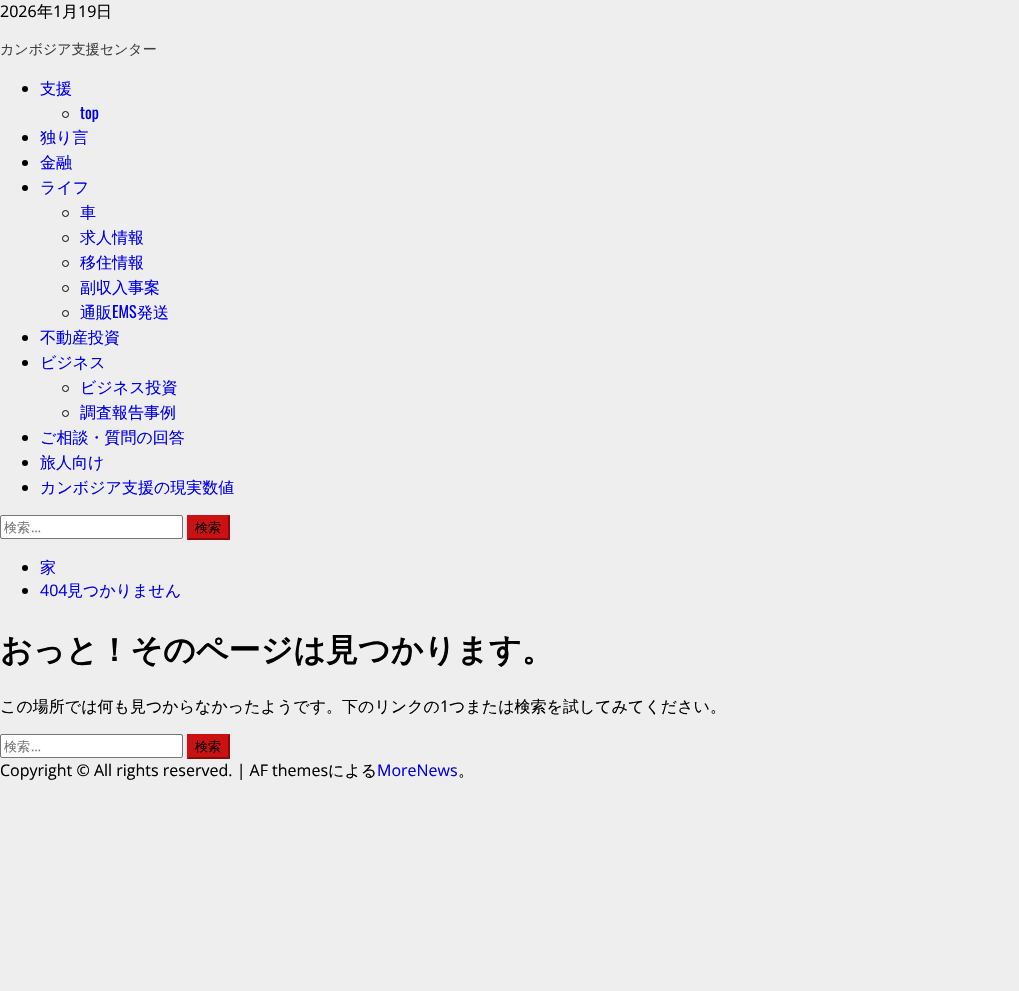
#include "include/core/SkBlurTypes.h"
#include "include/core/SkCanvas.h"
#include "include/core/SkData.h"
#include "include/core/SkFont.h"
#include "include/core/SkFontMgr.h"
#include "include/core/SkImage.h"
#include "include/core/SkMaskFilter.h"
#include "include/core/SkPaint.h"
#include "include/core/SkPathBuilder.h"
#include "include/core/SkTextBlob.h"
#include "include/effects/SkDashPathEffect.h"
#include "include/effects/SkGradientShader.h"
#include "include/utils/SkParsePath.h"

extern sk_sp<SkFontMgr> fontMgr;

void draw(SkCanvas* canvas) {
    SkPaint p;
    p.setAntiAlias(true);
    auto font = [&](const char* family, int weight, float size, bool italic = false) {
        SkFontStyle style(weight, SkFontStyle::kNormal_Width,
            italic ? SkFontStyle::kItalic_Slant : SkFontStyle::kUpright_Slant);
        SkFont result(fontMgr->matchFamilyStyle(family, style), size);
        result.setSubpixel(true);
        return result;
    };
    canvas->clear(0xFFEEEEEE);
    auto font1 = font("Open Sans", 400, 16);
    p.setColor(0xFF000000);
    canvas->drawString("2026", 0, 17, font1, p);
    auto font2 = font("WenQuanYi Zen Hei", 500, 16);
    canvas->drawString("年", 37, 17, font2, p);
    canvas->drawString("1", 53, 17, font1, p);
    canvas->drawString("月", 62, 17, font2, p);
    canvas->drawString("19", 78, 17, font1, p);
    canvas->drawString("日", 96, 17, font2, p);
    auto font3 = font("WenQuanYi Zen Hei", 500, 14);
    p.setColor(0xFF404040);
    canvas->drawString("カンボジア支援センター", 0, 54, font3, p);
    p.setColor(0xFF000000);
    canvas->drawCircle(25, 89, 3, p);
    p.setColor(0xFF0000EE);
    canvas->drawString("支援", 40, 94, font2, p);
    p.setStyle(SkPaint::kStroke_Style);
    p.setStrokeWidth(1);
    p.setColor(0xFF000000);
    canvas->drawCircle(65.5f, 114.5f, 3, p);
    auto font4 = font("Oswald", 400, 16);
    p.setStyle(SkPaint::kFill_Style);
    p.setColor(0xFF0000EE);
    canvas->drawString("top", 80, 119, font4, p);
    p.setColor(0xFF000000);
    canvas->drawCircle(25, 138, 3, p);
    p.setColor(0xFF0000EE);
    canvas->drawString("独り言", 40, 143, font2, p);
    p.setColor(0xFF000000);
    canvas->drawCircle(25, 163, 3, p);
    p.setColor(0xFF0000EE);
    canvas->drawString("金融", 40, 168, font2, p);
    p.setColor(0xFF000000);
    canvas->drawCircle(25, 188, 3, p);
    p.setColor(0xFF0000EE);
    canvas->drawString("ライフ", 40, 193, font2, p);
    p.setStyle(SkPaint::kStroke_Style);
    p.setColor(0xFF000000);
    canvas->drawCircle(65.5f, 213.5f, 3, p);
    p.setStyle(SkPaint::kFill_Style);
    p.setColor(0xFF0000EE);
    canvas->drawString("車", 80, 218, font2, p);
    p.setStyle(SkPaint::kStroke_Style);
    p.setColor(0xFF000000);
    canvas->drawCircle(65.5f, 238.5f, 3, p);
    p.setStyle(SkPaint::kFill_Style);
    p.setColor(0xFF0000EE);
    canvas->drawString("求人情報", 80, 243, font2, p);
    p.setStyle(SkPaint::kStroke_Style);
    p.setColor(0xFF000000);
    canvas->drawCircle(65.5f, 263.5f, 3, p);
    p.setStyle(SkPaint::kFill_Style);
    p.setColor(0xFF0000EE);
    canvas->drawString("移住情報", 80, 268, font2, p);
    p.setStyle(SkPaint::kStroke_Style);
    p.setColor(0xFF000000);
    canvas->drawCircle(65.5f, 288.5f, 3, p);
    p.setStyle(SkPaint::kFill_Style);
    p.setColor(0xFF0000EE);
    canvas->drawString("副収入事案", 80, 293, font2, p);
    p.setStyle(SkPaint::kStroke_Style);
    p.setColor(0xFF000000);
    canvas->drawCircle(65.5f, 313.5f, 3, p);
    p.setStyle(SkPaint::kFill_Style);
    p.setColor(0xFF0000EE);
    canvas->drawString("通販", 80, 318, font2, p);
    canvas->drawString("EMS", 112, 318, font4, p);
    canvas->drawString("発送", 137, 318, font2, p);
    p.setColor(0xFF000000);
    canvas->drawCircle(25, 338, 3, p);
    p.setColor(0xFF0000EE);
    canvas->drawString("不動産投資", 40, 343, font2, p);
    p.setColor(0xFF000000);
    canvas->drawCircle(25, 363, 3, p);
    p.setColor(0xFF0000EE);
    canvas->drawString("ビジネス", 40, 368, font2, p);
    p.setStyle(SkPaint::kStroke_Style);
    p.setColor(0xFF000000);
    canvas->drawCircle(65.5f, 388.5f, 3, p);
    p.setStyle(SkPaint::kFill_Style);
    p.setColor(0xFF0000EE);
    canvas->drawString("ビジネス投資", 80, 393, font2, p);
    p.setStyle(SkPaint::kStroke_Style);
    p.setColor(0xFF000000);
    canvas->drawCircle(65.5f, 413.5f, 3, p);
    p.setStyle(SkPaint::kFill_Style);
    p.setColor(0xFF0000EE);
    canvas->drawString("調査報告事例", 80, 418, font2, p);
    p.setColor(0xFF000000);
    canvas->drawCircle(25, 438, 3, p);
    p.setColor(0xFF0000EE);
    canvas->drawString("ご相談・質問の回答", 40, 443, font2, p);
    p.setColor(0xFF000000);
    canvas->drawCircle(25, 463, 3, p);
    p.setColor(0xFF0000EE);
    canvas->drawString("旅人向け", 40, 468, font2, p);
    p.setColor(0xFF000000);
    canvas->drawCircle(25, 488, 3, p);
    p.setColor(0xFF0000EE);
    canvas->drawString("カンボジア支援の現実数値", 40, 493, font2, p);
    p.setColor(0xFFFFFFFF);
    canvas->drawRoundRect(SkRect::MakeLTRB(0.5f, 515.5f, 182.5f, 538.5f), 1.5f, 1.5f, p);
    p.setStyle(SkPaint::kStroke_Style);
    p.setColor(0xFF767676);
    canvas->drawRoundRect(SkRect::MakeLTRB(0.5f, 515.5f, 182.5f, 538.5f), 1.5f, 1.5f, p);
    auto font5 = font("WenQuanYi Zen Hei", 500, 13);
    p.setStyle(SkPaint::kFill_Style);
    p.setColor(0xFF757575);
    canvas->drawString("検索", 4, 532, font5, p);
    auto font6 = font("Open Sans", 400, 13);
    canvas->drawString("…", 31, 532, font6, p);
    p.setColor(0xFFCB1111);
    canvas->drawRect(SkRect::MakeLTRB(187, 515, 230, 540), p);
    p.setColor(0xFF870B0B);
    canvas->drawPath(SkPathBuilder().moveTo(230, 515).lineTo(230, 540).lineTo(228, 538).lineTo(228, 517).close().detach(), p);
    canvas->drawPath(SkPathBuilder().moveTo(230, 540).lineTo(187, 540).lineTo(189, 538).lineTo(228, 538).close().detach(), p);
    p.setColor(0xFFCB1111);
    canvas->drawPath(SkPathBuilder().moveTo(187, 540).lineTo(187, 515).lineTo(189, 517).lineTo(189, 538).close().detach(), p);
    p.setColor(0xFF000000);
    canvas->drawString("検索", 195, 532, font5, p);
    canvas->drawCircle(25, 568, 3, p);
    p.setColor(0xFF0000EE);
    canvas->drawString("家", 40, 573, font2, p);
    p.setColor(0xFF000000);
    canvas->drawCircle(25, 591, 3, p);
    p.setColor(0xFF0000EE);
    canvas->drawString("404", 40, 596, font1, p);
    canvas->drawString("見つかりません", 67, 596, font2, p);
    auto font7 = font("WenQuanYi Zen Hei", 700, 32);
    p.setColor(0xFF000000);
    canvas->drawString("おっと！そのページは見つかります。", 0, 661, font7, p);
    canvas->drawString("この場所では何も見つからなかったようです。下のリンクの", 0, 712, font2, p);
    canvas->drawString("1", 440, 712, font1, p);
    canvas->drawString("つまたは検索を試してみてください。", 449, 712, font2, p);
    p.setColor(0xFFFFFFFF);
    canvas->drawRoundRect(SkRect::MakeLTRB(0.5f, 734.5f, 182.5f, 757.5f), 1.5f, 1.5f, p);
    p.setStyle(SkPaint::kStroke_Style);
    p.setColor(0xFF767676);
    canvas->drawRoundRect(SkRect::MakeLTRB(0.5f, 734.5f, 182.5f, 757.5f), 1.5f, 1.5f, p);
    p.setStyle(SkPaint::kFill_Style);
    p.setColor(0xFF757575);
    canvas->drawString("検索", 4, 751, font5, p);
    canvas->drawString("…", 31, 751, font6, p);
    p.setColor(0xFFCB1111);
    canvas->drawRect(SkRect::MakeLTRB(187, 734, 230, 759), p);
    p.setColor(0xFF870B0B);
    canvas->drawPath(SkPathBuilder().moveTo(230, 734).lineTo(230, 759).lineTo(228, 757).lineTo(228, 736).close().detach(), p);
    canvas->drawPath(SkPathBuilder().moveTo(230, 759).lineTo(187, 759).lineTo(189, 757).lineTo(228, 757).close().detach(), p);
    p.setColor(0xFFCB1111);
    canvas->drawPath(SkPathBuilder().moveTo(187, 759).lineTo(187, 734).lineTo(189, 736).lineTo(189, 757).close().detach(), p);
    p.setColor(0xFF000000);
    canvas->drawString("検索", 195, 751, font5, p);
    canvas->drawString("Copyright © All rights reserved. | AF themes", 0, 776, font1, p);
    canvas->drawString("による", 328, 776, font2, p);
    p.setColor(0xFF0000EE);
    canvas->drawString("MoreNews", 377, 776, font1, p);
    p.setColor(0xFF000000);
    canvas->drawString("。", 458, 776, font2, p);
}
